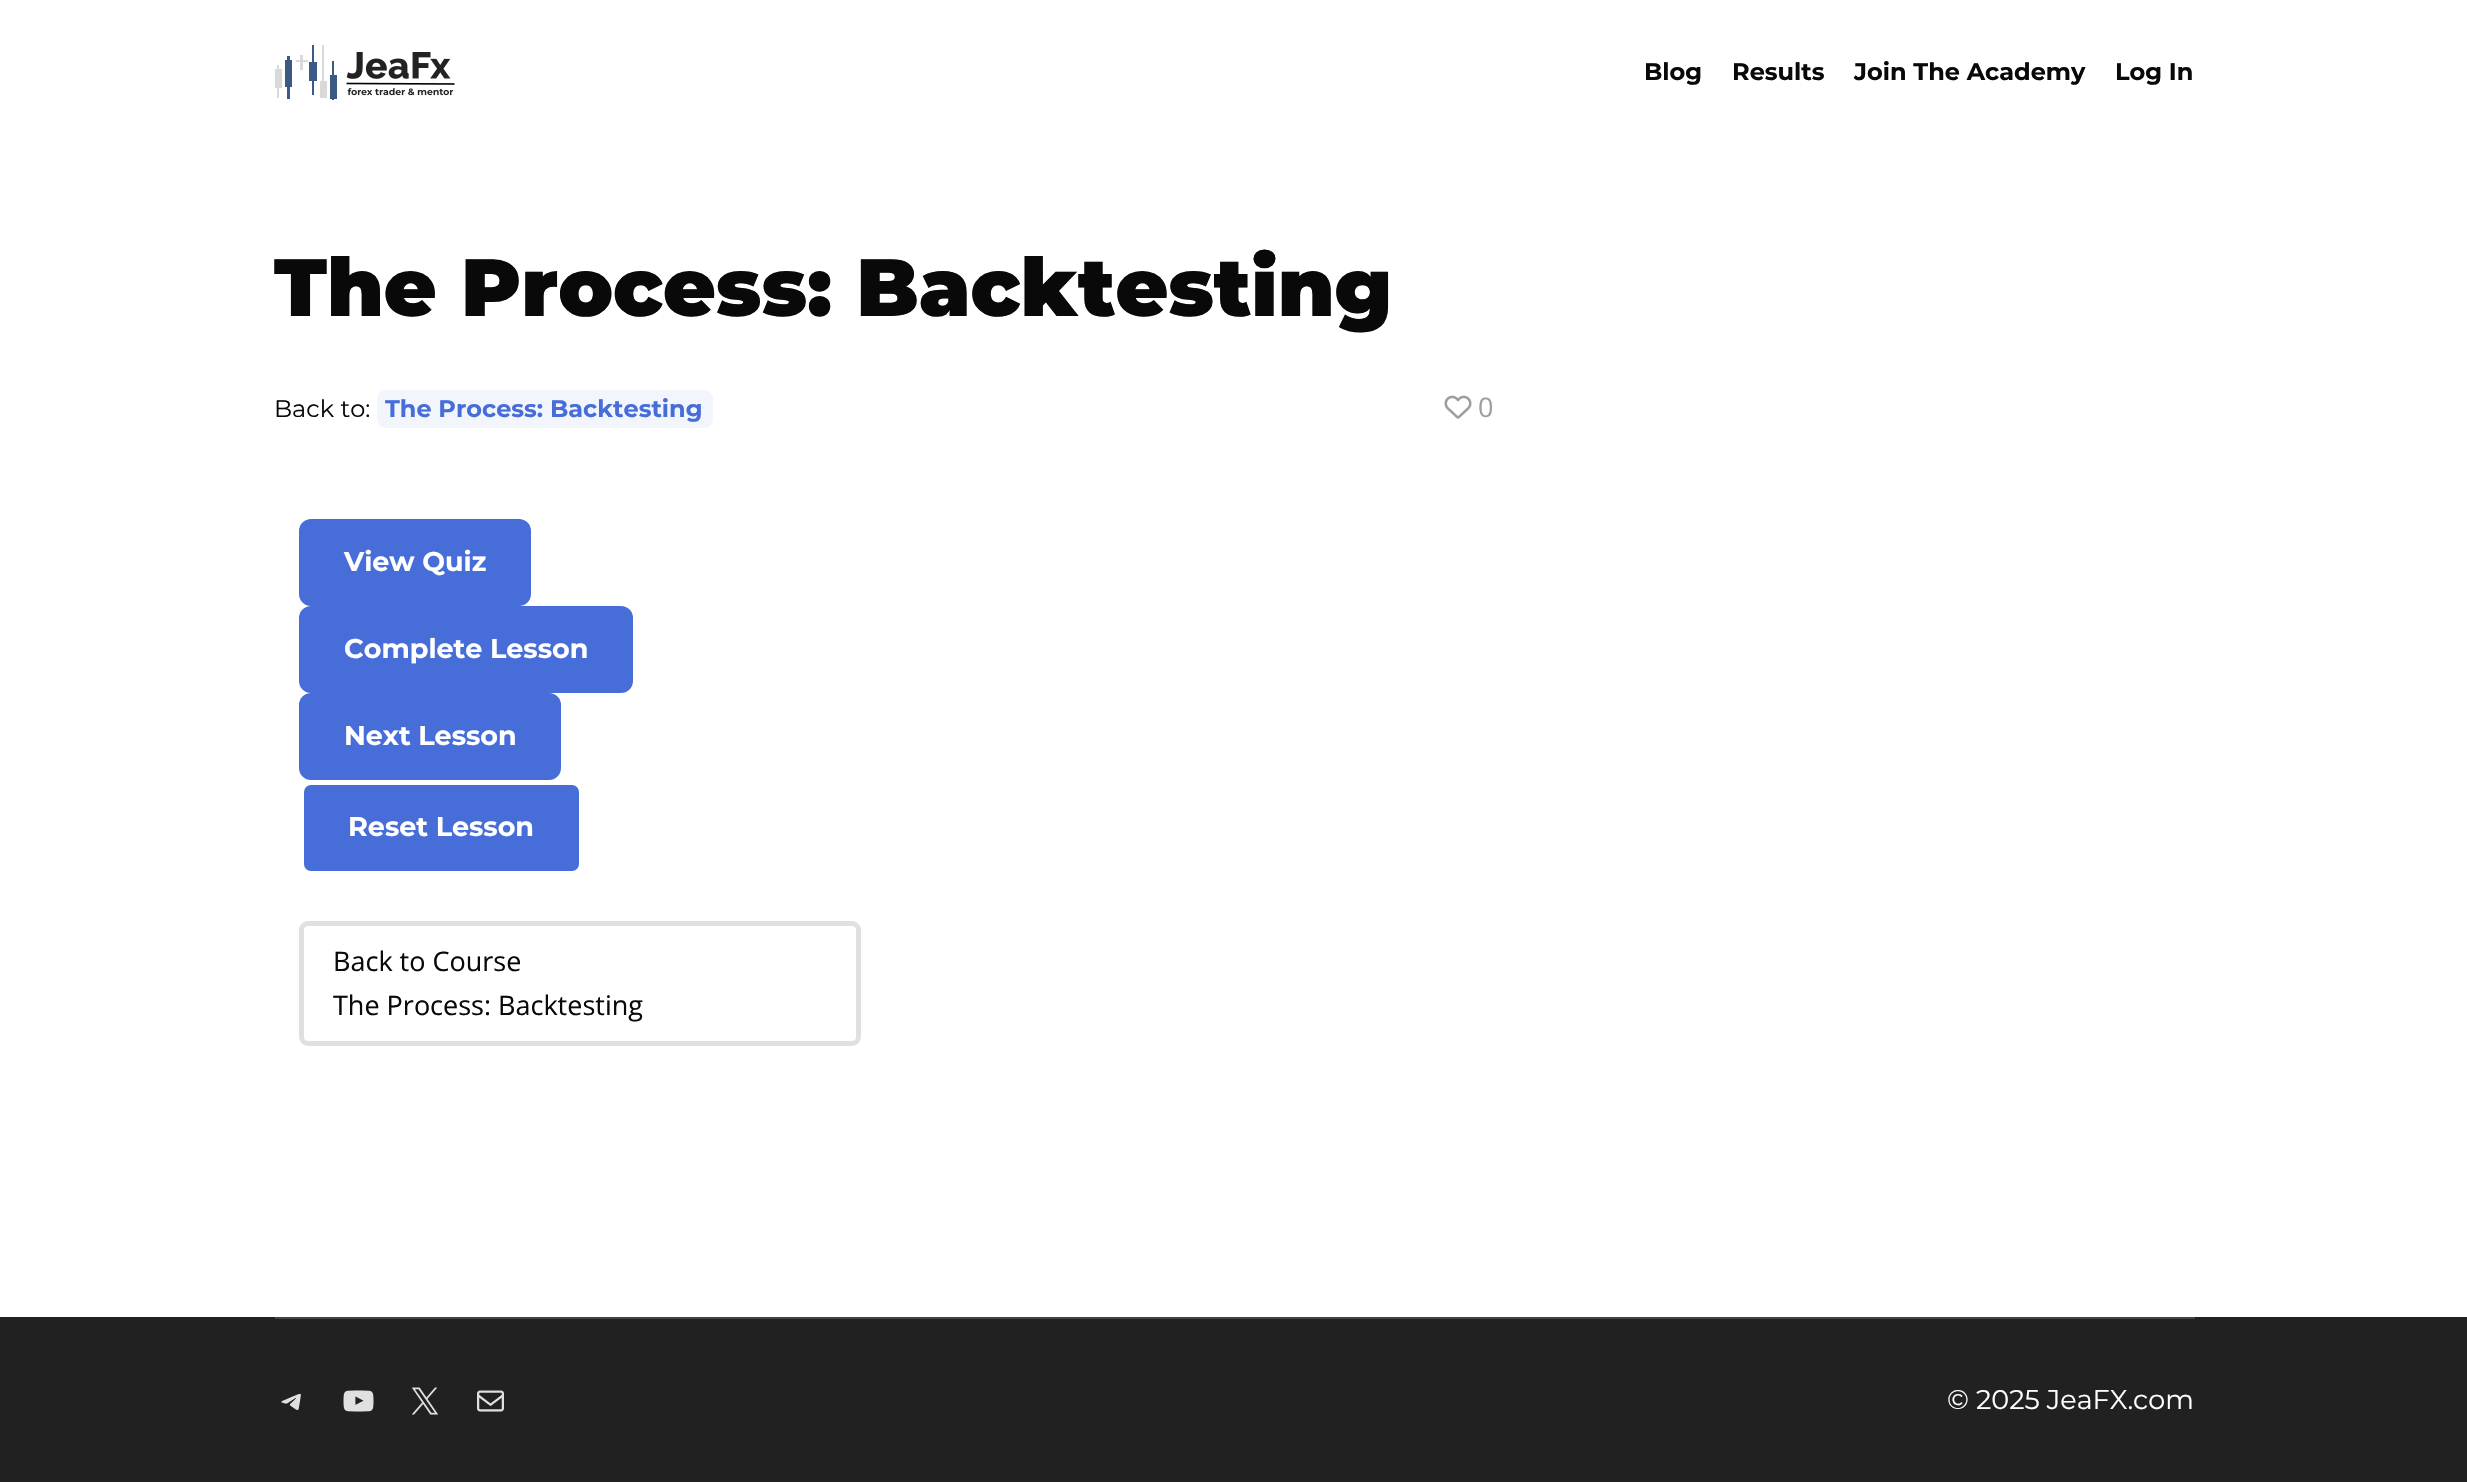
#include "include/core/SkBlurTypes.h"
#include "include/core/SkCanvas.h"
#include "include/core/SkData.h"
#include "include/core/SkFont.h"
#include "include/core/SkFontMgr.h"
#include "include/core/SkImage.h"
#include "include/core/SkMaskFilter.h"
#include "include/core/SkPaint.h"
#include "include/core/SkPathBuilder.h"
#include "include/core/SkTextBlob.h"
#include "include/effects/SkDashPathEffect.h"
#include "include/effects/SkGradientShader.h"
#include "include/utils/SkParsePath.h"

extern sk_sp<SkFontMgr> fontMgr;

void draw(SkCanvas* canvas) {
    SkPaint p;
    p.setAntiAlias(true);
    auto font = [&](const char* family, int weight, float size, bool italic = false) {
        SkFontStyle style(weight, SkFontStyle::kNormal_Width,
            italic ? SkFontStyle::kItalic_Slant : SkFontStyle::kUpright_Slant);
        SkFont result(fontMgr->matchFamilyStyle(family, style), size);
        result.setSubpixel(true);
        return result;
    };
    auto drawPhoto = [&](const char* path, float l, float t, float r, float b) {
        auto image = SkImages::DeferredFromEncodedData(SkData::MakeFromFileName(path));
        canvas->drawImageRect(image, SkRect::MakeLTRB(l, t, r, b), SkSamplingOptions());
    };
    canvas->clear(0xFFFFFFFF);
    drawPhoto("media/1.png", 275, 45, 455, 100);
    auto font1 = font("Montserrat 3", 100, 24);
    p.setColor(0xFF090909);
    {
        const struct { const char* s; float x, y; } items[] = {
            {"Blog", 1644, 80},
            {"Results", 1732, 80},
            {"Join The Academy", 1854, 80},
            {"Log In", 2115, 80},
        };
        for (auto [s, x, y] : items) {
            canvas->drawString(s, x, y, font1, p);
        }
    }
    auto font2 = font("Montserrat", 100, 81);
    canvas->drawString("The Process: Backtesting", 274, 316, font2, p);
    auto font3 = font("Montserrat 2", 100, 24);
    canvas->drawString("Back to:", 274, 417, font3, p);
    p.setColor(0xFFF3F5FC);
    canvas->drawRoundRect(SkRect::MakeLTRB(377, 390, 713, 428), 9, 9, p);
    p.setColor(0xFF466DD8);
    canvas->drawString("The Process: Backtesting", 385, 417, font1, p);
    drawPhoto("media/2.png", 1444, 395, 1472, 419);
    auto font4 = font("Open Sans", 400, 27);
    p.setColor(0xFF9E9E9E);
    canvas->drawString("0", 1478, 417, font4, p);
    p.setColor(0xFF466DD8);
    canvas->drawRoundRect(SkRect::MakeLTRB(299, 519, 531, 606), 12, 12, p);
    auto font5 = font("Montserrat 3", 100, 27);
    p.setColor(0xFFFFFFFF);
    canvas->drawString("View Quiz", 344, 571, font5, p);
    p.setColor(0xFF466DD8);
    canvas->drawRoundRect(SkRect::MakeLTRB(299, 606, 633, 693), 12, 12, p);
    p.setColor(0xFFFFFFFF);
    canvas->drawString("Complete Lesson", 344, 658, font5, p);
    p.setColor(0xFF466DD8);
    canvas->drawRoundRect(SkRect::MakeLTRB(299, 693, 561, 780), 12, 12, p);
    p.setColor(0xFFFFFFFF);
    canvas->drawString("Next Lesson", 344, 745, font5, p);
    p.setColor(0xFF466DD8);
    canvas->drawRoundRect(SkRect::MakeLTRB(301.5f, 782.5f, 581.5f, 873.5f), 9.5f, 9.5f, p);
    p.setStyle(SkPaint::kStroke_Style);
    p.setStrokeWidth(5);
    p.setColor(0xFFFFFFFF);
    canvas->drawRoundRect(SkRect::MakeLTRB(301.5f, 782.5f, 581.5f, 873.5f), 9.5f, 9.5f, p);
    p.setStyle(SkPaint::kFill_Style);
    canvas->drawString("Reset Lesson", 348, 836, font5, p);
    p.setStyle(SkPaint::kStroke_Style);
    p.setColor(0xFFE0E0E0);
    canvas->drawRoundRect(SkRect::MakeLTRB(301.5f, 923.5f, 858.5f, 1043.5f), 6.5f, 6.5f, p);
    p.setStyle(SkPaint::kFill_Style);
    p.setColor(0xFF090909);
    canvas->drawString("Back to Course", 333, 971, font4, p);
    canvas->drawString("The Process: Backtesting", 333, 1015, font4, p);
    p.setColor(0xFF212121);
    canvas->drawRect(SkRect::MakeLTRB(0, 1317, 2467, 1482), p);
    p.setColor(0xFF444444);
    canvas->drawRect(SkRect::MakeLTRB(275, 1317, 2195, 1319), p);
    drawPhoto("media/3.png", 281, 1393, 301, 1410);
    drawPhoto("media/4.png", 343, 1390, 374, 1412);
    drawPhoto("media/5.png", 411, 1387, 439, 1415);
    drawPhoto("media/6.png", 477, 1390, 504, 1412);
    auto font6 = font("Montserrat 2", 100, 27);
    p.setColor(0xFFFFFFFF);
    canvas->drawString("© 2025 JeaFX.com", 1947, 1409, font6, p);
}
